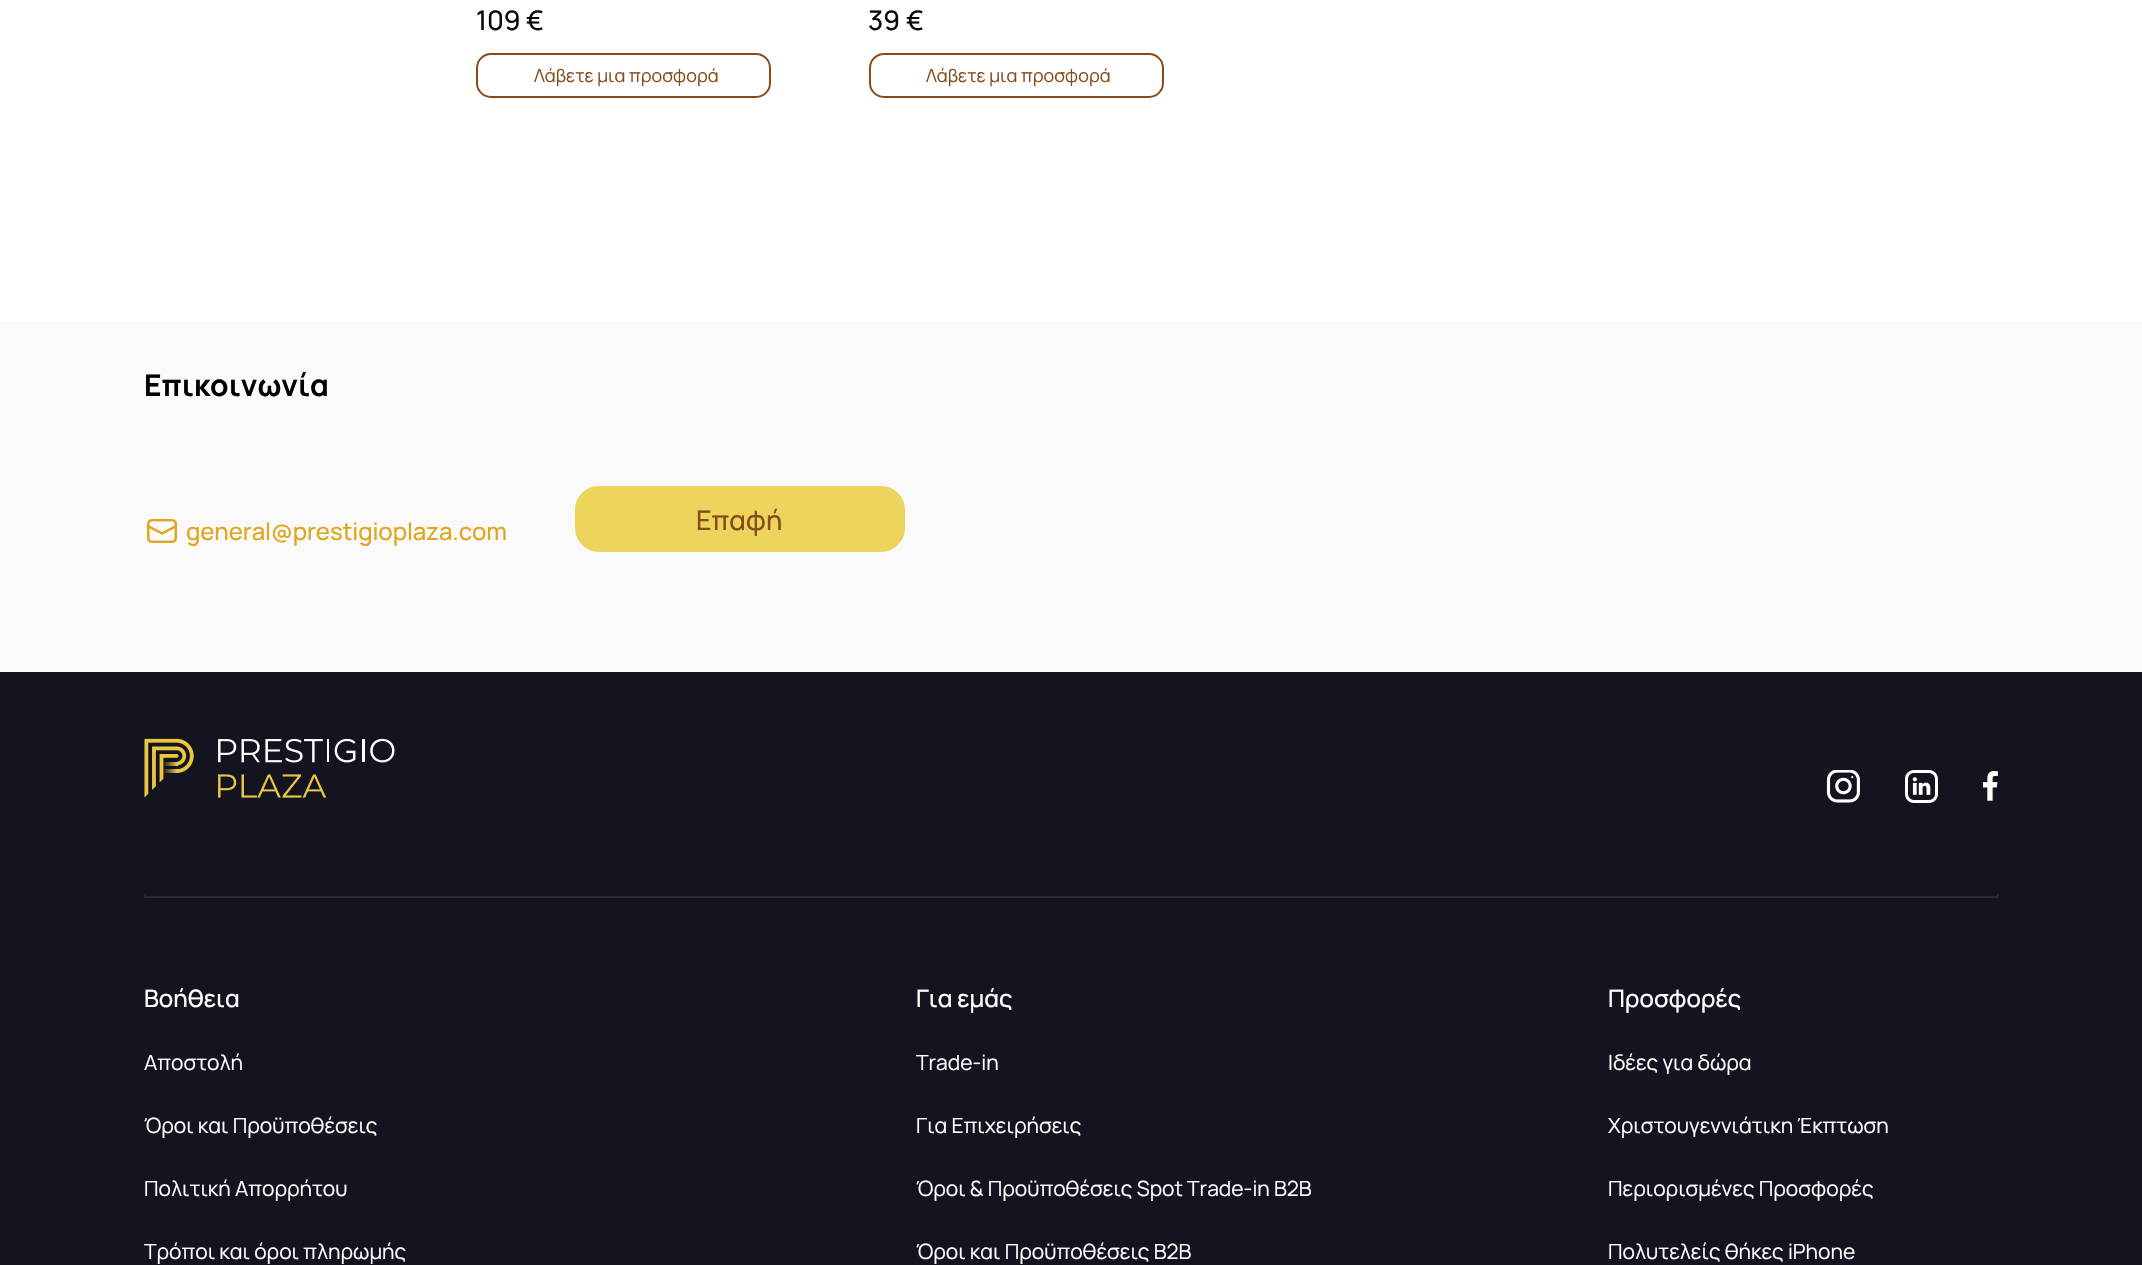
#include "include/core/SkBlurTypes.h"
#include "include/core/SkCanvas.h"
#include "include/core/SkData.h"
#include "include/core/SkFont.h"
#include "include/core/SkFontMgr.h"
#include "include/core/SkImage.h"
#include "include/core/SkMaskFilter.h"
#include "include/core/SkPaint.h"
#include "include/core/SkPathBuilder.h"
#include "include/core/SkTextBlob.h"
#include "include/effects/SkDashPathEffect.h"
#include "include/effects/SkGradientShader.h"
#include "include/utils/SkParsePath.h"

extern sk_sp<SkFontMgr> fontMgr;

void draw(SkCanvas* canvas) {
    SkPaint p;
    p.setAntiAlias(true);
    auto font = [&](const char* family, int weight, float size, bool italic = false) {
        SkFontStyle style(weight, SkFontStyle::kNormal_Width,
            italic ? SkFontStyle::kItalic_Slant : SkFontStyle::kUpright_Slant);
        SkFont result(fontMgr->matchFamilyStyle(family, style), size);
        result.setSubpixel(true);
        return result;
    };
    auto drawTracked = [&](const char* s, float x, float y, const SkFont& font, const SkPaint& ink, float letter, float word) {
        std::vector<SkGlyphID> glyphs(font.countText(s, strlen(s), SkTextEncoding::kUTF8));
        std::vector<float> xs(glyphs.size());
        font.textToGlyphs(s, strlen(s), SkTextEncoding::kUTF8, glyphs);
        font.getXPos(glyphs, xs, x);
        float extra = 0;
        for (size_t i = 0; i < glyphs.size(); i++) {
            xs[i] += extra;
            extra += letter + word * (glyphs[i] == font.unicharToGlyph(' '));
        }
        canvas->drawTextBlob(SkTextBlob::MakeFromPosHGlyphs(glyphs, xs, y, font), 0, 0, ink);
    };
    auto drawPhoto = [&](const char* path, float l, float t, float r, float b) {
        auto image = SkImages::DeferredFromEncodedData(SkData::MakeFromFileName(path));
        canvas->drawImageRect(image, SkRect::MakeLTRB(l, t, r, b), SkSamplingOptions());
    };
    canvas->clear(0xFFFFFFFF);
    auto font1 = font("Manrope", 500, 27);
    p.setColor(0xFF0A0A0A);
    canvas->drawString("109", 476, 30, font1, p);
    canvas->drawString("€", 526, 30, font1, p);
    p.setStyle(SkPaint::kStroke_Style);
    p.setStrokeWidth(2);
    p.setColor(0xFF874A19);
    canvas->drawRoundRect(SkRect::MakeLTRB(477, 54, 770, 97), 14, 14, p);
    auto font2 = font("Manrope", 400, 18);
    p.setStyle(SkPaint::kFill_Style);
    canvas->drawString("Λάβετε μια προσφορά", 534, 82, font2, p);
    p.setColor(0xFF0A0A0A);
    canvas->drawString("39", 868, 30, font1, p);
    canvas->drawString("€", 906, 30, font1, p);
    p.setStyle(SkPaint::kStroke_Style);
    p.setColor(0xFF874A19);
    canvas->drawRoundRect(SkRect::MakeLTRB(870, 54, 1163, 97), 14, 14, p);
    p.setStyle(SkPaint::kFill_Style);
    canvas->drawString("Λάβετε μια προσφορά", 926, 82, font2, p);
    p.setColor(0xFFFAFAFA);
    canvas->drawRect(SkRect::MakeLTRB(0, 321, 2142, 672), p);
    auto font3 = font("Manrope", 700, 30);
    p.setColor(0xFF000000);
    canvas->drawString("Επικοινωνία", 144, 396, font3, p);
    drawPhoto("media/1.png", 147, 519, 177, 543);
    auto font4 = font("Manrope", 500, 24);
    p.setColor(0xFFE1A61F);
    drawTracked("general@prestigioplaza.com", 186, 540, font4, p, -0.1f, 0);
    p.setColor(0xFFEDD45C);
    canvas->drawRoundRect(SkRect::MakeLTRB(576.5f, 487.5f, 903.5f, 550.5f), 22.5f, 22.5f, p);
    p.setStyle(SkPaint::kStroke_Style);
    p.setStrokeWidth(3);
    canvas->drawRoundRect(SkRect::MakeLTRB(576.5f, 487.5f, 903.5f, 550.5f), 22.5f, 22.5f, p);
    p.setStyle(SkPaint::kFill_Style);
    p.setColor(0xFF874A19);
    canvas->drawString("Επαφή", 696, 530, font1, p);
    p.setColor(0xFF13141F);
    canvas->drawRect(SkRect::MakeLTRB(0, 672, 2142, 1265), p);
    drawPhoto("media/2.png", 144, 738, 395, 798);
    drawPhoto("media/3.png", 1826, 770, 1860, 803);
    drawPhoto("media/4.png", 1905, 770, 1938, 803);
    drawPhoto("media/5.png", 1983, 771, 1998, 801);
    {
        const struct { float l, t, r, b; SkColor color; } items[] = {
            {1997, 894, 1999, 897, 0xFF292A34},
            {144, 896, 1998, 898, 0xFF292A34},
            {144, 894, 146, 897, 0xFF21222C},
        };
        for (auto [l, t, r, b, color] : items) {
            p.setColor(color);
            canvas->drawRect(SkRect::MakeLTRB(l, t, r, b), p);
        }
    }
    p.setColor(0xFFFFFFFF);
    canvas->drawString("Βοήθεια", 144, 1007, font4, p);
    auto font5 = font("Manrope", 400, 21);
    {
        const struct { const char* s; float x, y; } items[] = {
            {"Αποστολή", 144, 1070},
            {"Όροι και Προϋποθέσεις", 144, 1133},
            {"Πολιτική Απορρήτου", 144, 1196},
            {"Τρόποι και όροι πληρωμής", 144, 1259},
        };
        for (auto [s, x, y] : items) {
            canvas->drawString(s, x, y, font5, p);
        }
    }
    canvas->drawString("Για εμάς", 916, 1007, font4, p);
    {
        const struct { const char* s; float x, y; } items[] = {
            {"Trade-in", 916, 1070},
            {"Για Επιχειρήσεις", 916, 1133},
            {"Όροι & Προϋποθέσεις Spot Trade-in В2В", 916, 1196},
            {"Όροι και Προϋποθέσεις B2B", 916, 1259},
        };
        for (auto [s, x, y] : items) {
            canvas->drawString(s, x, y, font5, p);
        }
    }
    canvas->drawString("Προσφορές", 1608, 1007, font4, p);
    {
        const struct { const char* s; float x, y; } items[] = {
            {"Ιδέες για δώρα", 1608, 1070},
            {"Χριστουγεννιάτικη Έκπτωση", 1608, 1133},
            {"Περιορισμένες Προσφορές", 1608, 1196},
            {"Πολυτελείς θήκες iPhone", 1608, 1259},
        };
        for (auto [s, x, y] : items) {
            canvas->drawString(s, x, y, font5, p);
        }
    }
}
